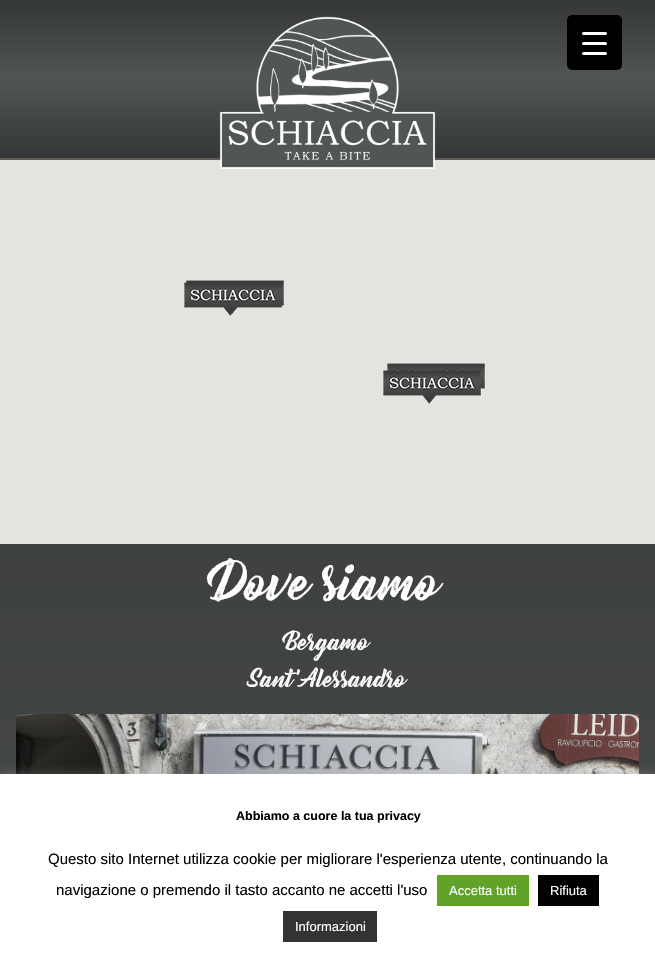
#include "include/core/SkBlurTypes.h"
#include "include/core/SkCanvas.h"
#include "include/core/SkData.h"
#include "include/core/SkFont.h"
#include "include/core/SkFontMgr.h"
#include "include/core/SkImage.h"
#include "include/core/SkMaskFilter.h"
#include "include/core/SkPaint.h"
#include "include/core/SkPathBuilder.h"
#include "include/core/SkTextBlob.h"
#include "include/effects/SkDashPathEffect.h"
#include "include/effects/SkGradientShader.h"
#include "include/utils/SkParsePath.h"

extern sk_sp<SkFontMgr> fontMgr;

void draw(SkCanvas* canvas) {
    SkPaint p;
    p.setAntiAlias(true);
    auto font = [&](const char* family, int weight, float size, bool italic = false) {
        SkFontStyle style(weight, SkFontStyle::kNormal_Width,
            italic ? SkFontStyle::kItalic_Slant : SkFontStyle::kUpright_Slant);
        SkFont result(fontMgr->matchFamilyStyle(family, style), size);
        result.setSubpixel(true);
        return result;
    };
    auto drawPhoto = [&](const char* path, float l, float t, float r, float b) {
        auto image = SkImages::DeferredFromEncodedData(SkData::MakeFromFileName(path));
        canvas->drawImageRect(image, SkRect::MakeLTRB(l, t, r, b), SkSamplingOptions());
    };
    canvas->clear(0xFFFFFFFF);
    {
        const SkColor colors[] = {0xFF343637, 0xFF525556, 0xFF343637};
        const float stops[] = {0, 0.5f, 1};
        const SkPoint ends[] = {{327, 0}, {328, 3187}};
        p.setShader(SkGradientShader::MakeLinear(ends, colors, stops, 3, SkTileMode::kClamp));
        p.setAlpha(255);
    }
    canvas->drawRect(SkRect::MakeLTRB(0, 544, 655, 774), p);
    {
        const SkColor colors[] = {0xFF343637, 0xFF525556, 0xFF343637};
        const float stops[] = {0, 0.5f, 1};
        const SkPoint ends[] = {{328, 0}, {328, 158}};
        p.setShader(SkGradientShader::MakeLinear(ends, colors, stops, 3, SkTileMode::kClamp));
        p.setAlpha(255);
    }
    canvas->drawRect(SkRect::MakeLTRB(0, 0, 655, 158), p);
    p.setShader(nullptr);
    p.setColor(0xFF000000);
    canvas->drawRoundRect(SkRect::MakeLTRB(567, 15, 622, 70), 5, 5, p);
    p.setColor(0xFFFFFFFF);
    canvas->drawRoundRect(SkRect::MakeLTRB(582, 42, 607, 45), 1.5f, 1.5f, p);
    canvas->drawRoundRect(SkRect::MakeLTRB(582, 32, 607, 35), 1.5f, 1.5f, p);
    canvas->drawRoundRect(SkRect::MakeLTRB(582, 52, 607, 55), 1.5f, 1.5f, p);
    p.setColor(0xFF5C5B55);
    canvas->drawRect(SkRect::MakeLTRB(0, 158, 655, 160), p);
    p.setColor(0xFFE5E3DF);
    canvas->drawRect(SkRect::MakeLTRB(0, 160, 655, 544), p);
    drawPhoto("media/1.png", 219, 16, 436, 169);
    drawPhoto("media/2.png", 186, 280, 284, 314);
    drawPhoto("media/3.png", 184, 282, 282, 316);
    drawPhoto("media/4.png", 387, 363, 485, 389);
    drawPhoto("media/5.png", 383, 370, 481, 404);
    auto font1 = font("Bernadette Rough", 400, 48);
    p.setColor(0xFFFFFFFF);
    canvas->drawString("Dove siamo", 214, 600, font1, p);
    auto font2 = font("Bernadette Rough", 400, 22.5f);
    canvas->drawString("Bergamo", 285, 650, font2, p);
    canvas->drawString("Sant’Alessandro", 250, 687, font2, p);
    drawPhoto("media/6.png", 16, 714, 639, 774);
    p.setColor(0x4DACABAB);
    p.setMaskFilter(SkMaskFilter::MakeBlur(kNormal_SkBlurStyle, 5));
    canvas->drawRect(SkRect::MakeLTRB(0, 773, 655, 953), p);
    p.setMaskFilter(nullptr);
    p.setColor(0xFFFFFFFF);
    canvas->drawRect(SkRect::MakeLTRB(0, 774, 655, 954), p);
    auto font3 = font("Liberation Sans", 700, 12.5f);
    p.setColor(0xFF000000);
    canvas->drawString("Abbiamo a cuore la tua privacy", 236, 820, font3, p);
    auto font4 = font("Liberation Sans", 400, 15);
    canvas->drawString("Questo sito Internet utilizza cookie per migliorare l'esperienza utente, continuando la", 48, 864, font4, p);
    canvas->drawString("navigazione o premendo il tasto accanto ne accetti l'uso", 56, 895, font4, p);
    p.setColor(0xFF61A229);
    canvas->drawRect(SkRect::MakeLTRB(437, 875, 529, 906), p);
    auto font5 = font("Liberation Sans", 400, 13);
    p.setColor(0xFFFFFFFF);
    canvas->drawString("Accetta tutti", 449, 895, font5, p);
    p.setColor(0xFF000000);
    canvas->drawRect(SkRect::MakeLTRB(538, 875, 599, 906), p);
    p.setColor(0xFFFFFFFF);
    canvas->drawString("Rifiuta", 550, 895, font5, p);
    p.setColor(0xFF333333);
    canvas->drawRect(SkRect::MakeLTRB(283, 911, 377, 942), p);
    p.setColor(0xFFFFFFFF);
    canvas->drawString("Informazioni", 295, 931, font5, p);
}
